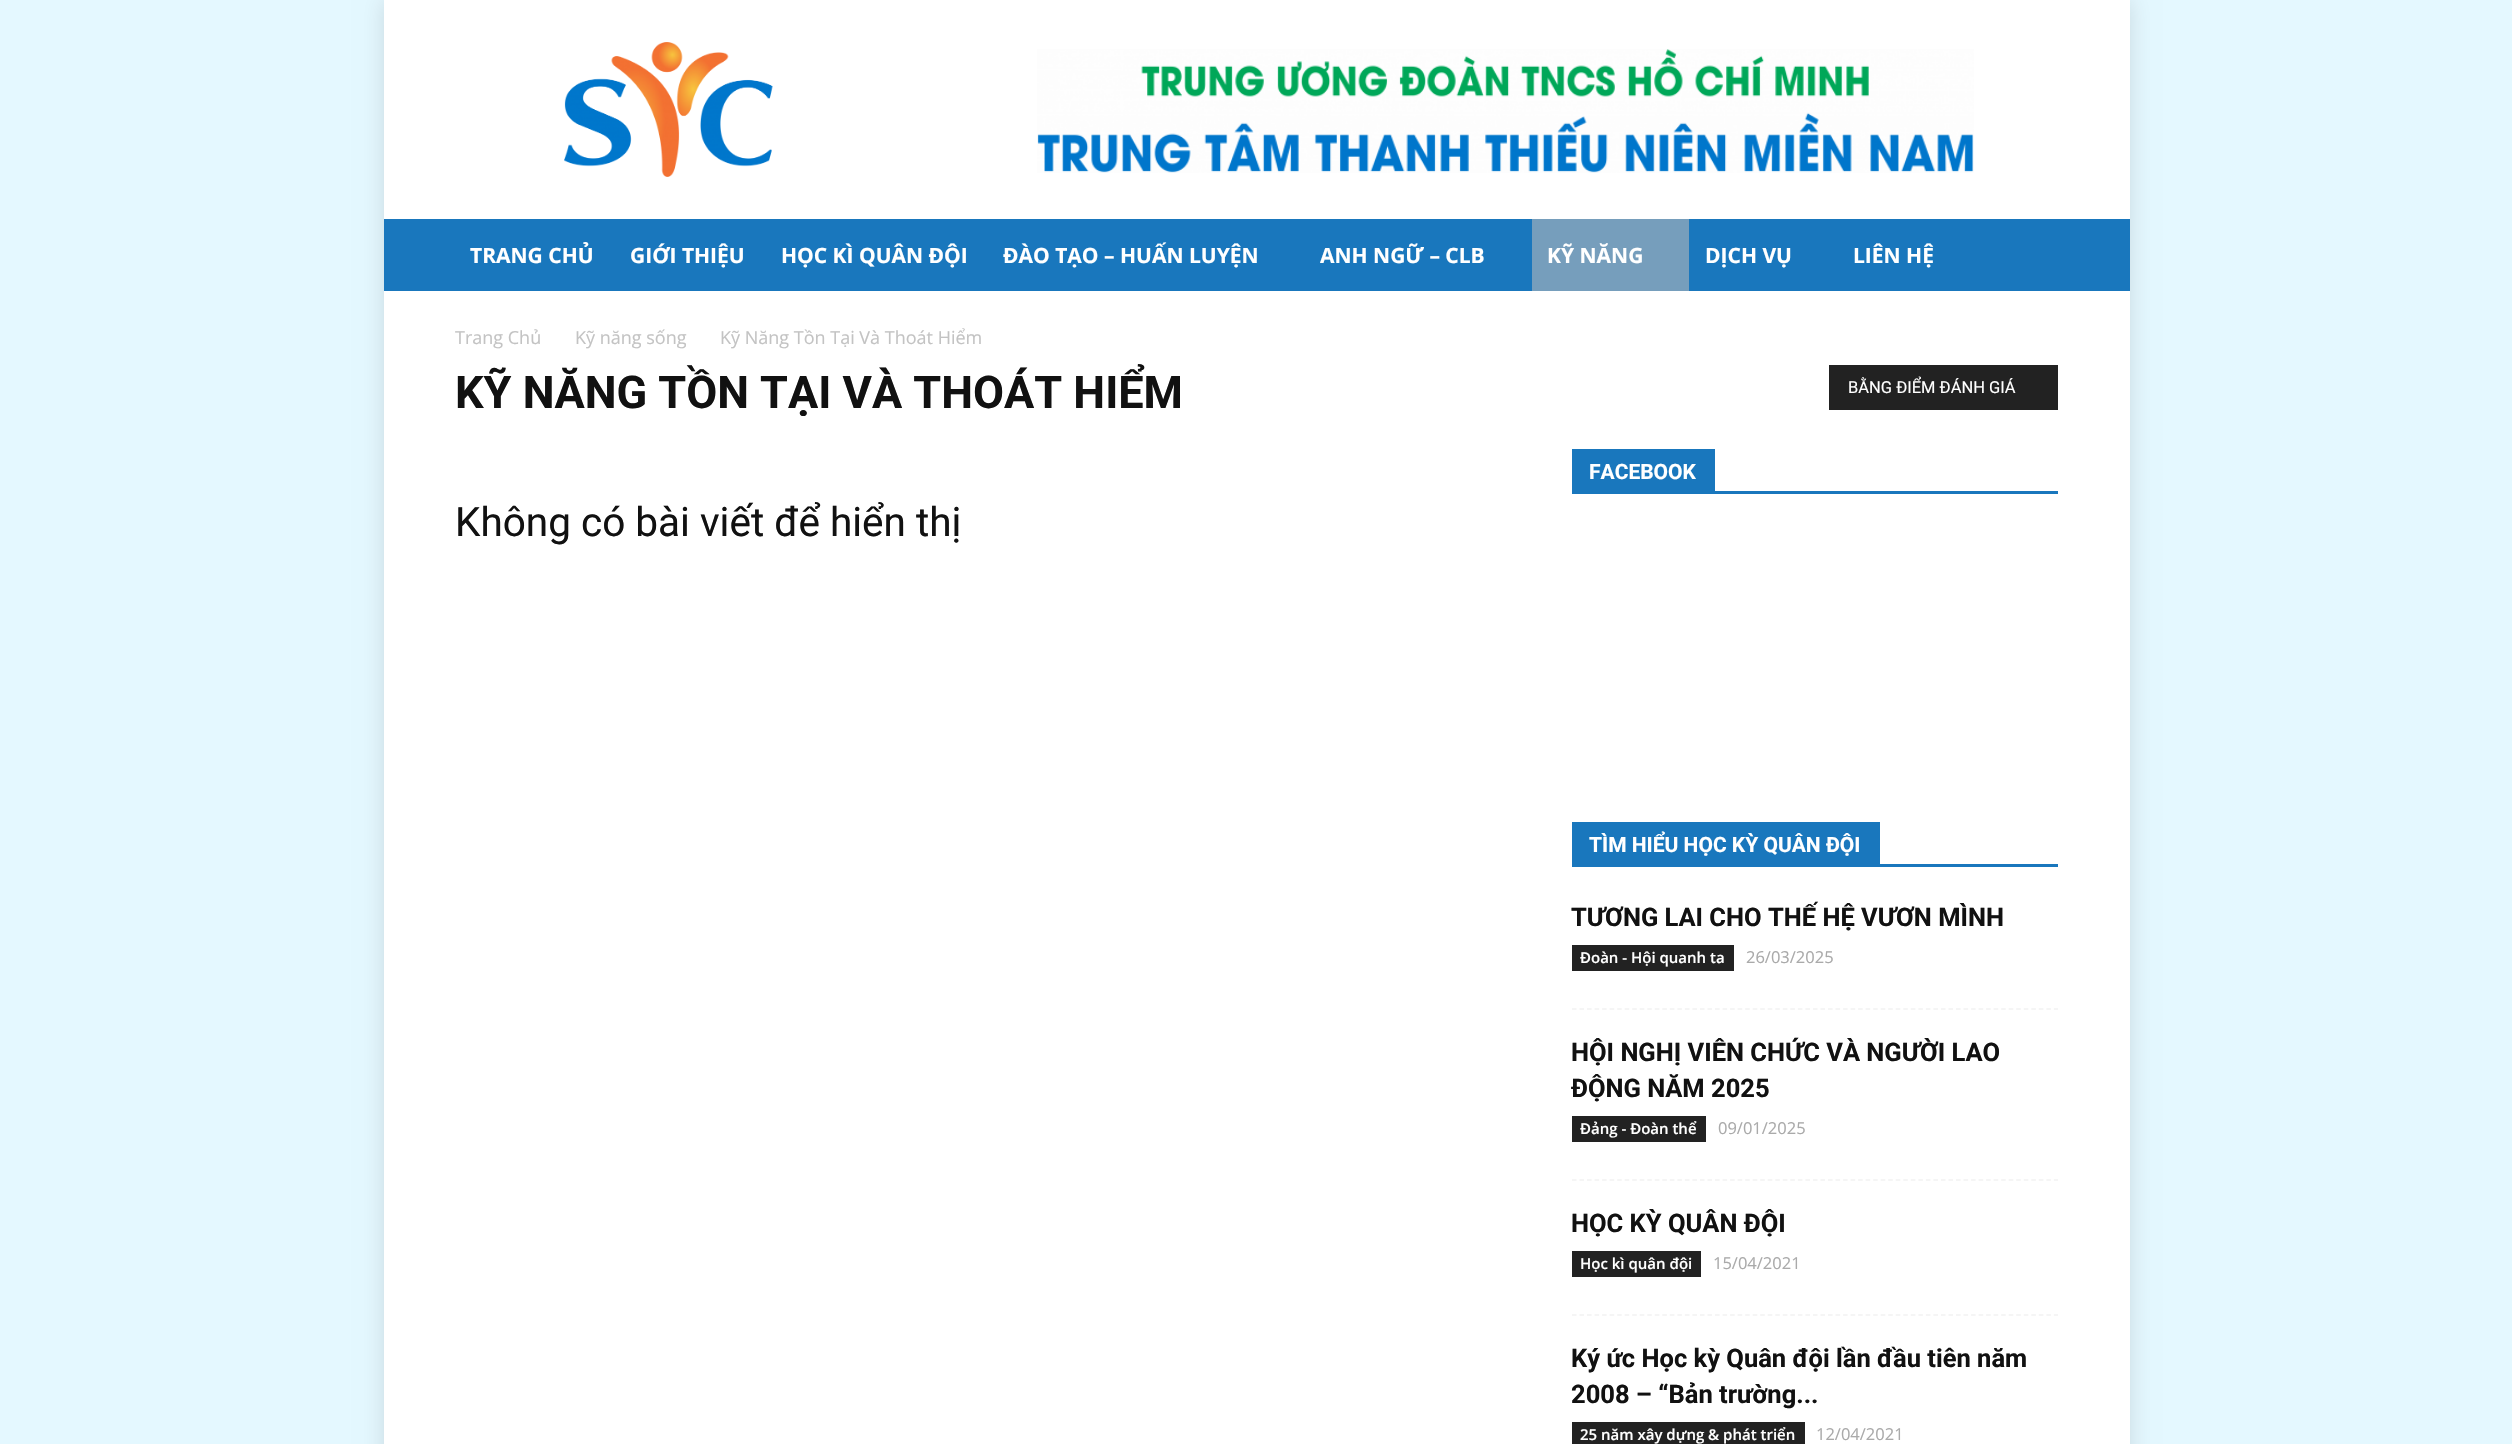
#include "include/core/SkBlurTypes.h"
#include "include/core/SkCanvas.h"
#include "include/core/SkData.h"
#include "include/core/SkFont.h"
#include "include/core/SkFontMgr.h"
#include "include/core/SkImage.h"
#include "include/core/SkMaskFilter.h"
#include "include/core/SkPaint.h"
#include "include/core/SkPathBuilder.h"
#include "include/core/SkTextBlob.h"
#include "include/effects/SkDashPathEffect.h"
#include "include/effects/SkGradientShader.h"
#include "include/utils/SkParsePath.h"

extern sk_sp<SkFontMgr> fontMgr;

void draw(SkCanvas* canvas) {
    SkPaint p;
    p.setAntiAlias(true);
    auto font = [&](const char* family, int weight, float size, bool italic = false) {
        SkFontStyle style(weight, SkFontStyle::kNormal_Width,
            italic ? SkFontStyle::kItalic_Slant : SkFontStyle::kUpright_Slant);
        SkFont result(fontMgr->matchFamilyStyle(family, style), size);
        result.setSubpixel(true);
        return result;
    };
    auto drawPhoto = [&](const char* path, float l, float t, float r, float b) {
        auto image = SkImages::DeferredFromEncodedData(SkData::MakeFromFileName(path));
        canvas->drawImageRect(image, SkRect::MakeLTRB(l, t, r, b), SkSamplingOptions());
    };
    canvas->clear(0xFFE4F8FF);
    p.setColor(0x1F000000);
    p.setMaskFilter(SkMaskFilter::MakeBlur(kNormal_SkBlurStyle, 11));
    canvas->drawRect(SkRect::MakeLTRB(384, 0, 2130, 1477), p);
    p.setMaskFilter(nullptr);
    p.setColor(0xFFFFFFFF);
    canvas->drawRect(SkRect::MakeLTRB(384, 0, 2130, 219), p);
    drawPhoto("media/1.png", 564, 42, 773, 177);
    drawPhoto("media/2.png", 1037, 49, 1974, 173);
    p.setColor(0xFF1977BD);
    canvas->drawRect(SkRect::MakeLTRB(384, 219, 2130, 291), p);
    auto font1 = font("Open Sans", 700, 21);
    p.setColor(0xFFFFFFFF);
    {
        const struct { const char* s; float x, y; } items[] = {
            {"TRANG CHỦ", 470, 263},
            {"GIỚI THIỆU", 630, 263},
            {"HỌC KÌ QUÂN ĐỘI", 781, 263},
            {"ĐÀO TẠO – HUẤN LUYỆN", 1003, 263},
            {"ANH NGỮ – CLB", 1320, 263},
        };
        for (auto [s, x, y] : items) {
            canvas->drawString(s, x, y, font1, p);
        }
    }
    p.setColor(0xFF769EBC);
    canvas->drawRect(SkRect::MakeLTRB(1532, 219, 1689, 291), p);
    p.setColor(0xFFFFFFFF);
    {
        const struct { const char* s; float x, y; } items[] = {
            {"KỸ NĂNG", 1547, 263},
            {"DỊCH VỤ", 1705, 263},
            {"LIÊN HỆ", 1853, 263},
        };
        for (auto [s, x, y] : items) {
            canvas->drawString(s, x, y, font1, p);
        }
    }
    canvas->drawRect(SkRect::MakeLTRB(384, 291, 2130, 1444), p);
    auto font2 = font("Open Sans", 400, 18);
    p.setColor(0xFFC3C3C3);
    {
        const struct { const char* s; float x, y; } items[] = {
            {"Trang Chủ", 455, 344},
            {"Kỹ năng sống", 575, 344},
            {"Kỹ Năng Tồn Tại Và Thoát Hiểm", 720, 344},
        };
        for (auto [s, x, y] : items) {
            canvas->drawString(s, x, y, font2, p);
        }
    }
    auto font3 = font("Roboto", 700, 45);
    p.setColor(0xFF111111);
    canvas->drawString("KỸ NĂNG TỒN TẠI VÀ THOÁT HIỂM", 455, 408, font3, p);
    p.setColor(0xFF222222);
    canvas->drawRect(SkRect::MakeLTRB(1829, 365, 2058, 410), p);
    auto font4 = font("Roboto", 400, 16.5f);
    p.setColor(0xFFFFFFFF);
    canvas->drawString("BẰNG ĐIỂM ĐÁNH GIÁ", 1848, 393, font4, p);
    auto font5 = font("Roboto", 400, 40.5f);
    p.setColor(0xFF111111);
    canvas->drawString("Không có bài viết để hiển thị", 455, 536, font5, p);
    p.setColor(0xFF1977BD);
    canvas->drawRect(SkRect::MakeLTRB(1572, 491, 2058, 494), p);
    canvas->drawRect(SkRect::MakeLTRB(1572, 449, 1715, 491), p);
    auto font6 = font("Roboto", 700, 21);
    p.setColor(0xFFFFFFFF);
    canvas->drawString("FACEBOOK", 1589, 479, font6, p);
    p.setColor(0xFF1977BD);
    canvas->drawRect(SkRect::MakeLTRB(1572, 864, 2058, 867), p);
    canvas->drawRect(SkRect::MakeLTRB(1572, 822, 1880, 864), p);
    p.setColor(0xFFFFFFFF);
    canvas->drawString("TÌM HIỂU HỌC KỲ QUÂN ĐỘI", 1589, 852, font6, p);
    p.setStyle(SkPaint::kStroke_Style);
    p.setStrokeWidth(1.5f);
    p.setColor(0xFFF2F2F2);
    p.setPathEffect(SkDashPathEffect::Make({{4.5f, 3.03f}}, 0));
    canvas->drawPath(SkPathBuilder().moveTo(1572, 1009).lineTo(2058, 1009).detach(), p);
    p.setPathEffect(nullptr);
    auto font7 = font("Roboto", 700, 25.5f);
    p.setStyle(SkPaint::kFill_Style);
    p.setColor(0xFF111111);
    canvas->drawString("TƯƠNG LAI CHO THẾ HỆ VƯƠN MÌNH", 1571, 926, font7, p);
    p.setColor(0xFF222222);
    canvas->drawRect(SkRect::MakeLTRB(1572, 945, 1734, 971), p);
    auto font8 = font("Open Sans", 600, 15);
    p.setColor(0xFFFFFFFF);
    canvas->drawString("Đoàn - Hội quanh ta", 1580, 963, font8, p);
    auto font9 = font("Open Sans", 400, 16.5f);
    p.setColor(0xFFAAAAAA);
    canvas->drawString("26/03/2025", 1746, 963, font9, p);
    p.setStyle(SkPaint::kStroke_Style);
    p.setColor(0xFFF2F2F2);
    p.setPathEffect(SkDashPathEffect::Make({{4.5f, 3.03f}}, 0));
    canvas->drawPath(SkPathBuilder().moveTo(1572, 1180).lineTo(2058, 1180).detach(), p);
    p.setPathEffect(nullptr);
    p.setStyle(SkPaint::kFill_Style);
    p.setColor(0xFF111111);
    canvas->drawString("HỘI NGHỊ VIÊN CHỨC VÀ NGƯỜI LAO", 1571, 1061, font7, p);
    canvas->drawString("ĐỘNG NĂM 2025", 1571, 1097, font7, p);
    p.setColor(0xFF222222);
    canvas->drawRect(SkRect::MakeLTRB(1572, 1116, 1706, 1142), p);
    p.setColor(0xFFFFFFFF);
    canvas->drawString("Đảng - Đoàn thể", 1580, 1134, font8, p);
    p.setColor(0xFFAAAAAA);
    canvas->drawString("09/01/2025", 1718, 1134, font9, p);
    p.setStyle(SkPaint::kStroke_Style);
    p.setColor(0xFFF2F2F2);
    p.setPathEffect(SkDashPathEffect::Make({{4.5f, 3.03f}}, 0));
    canvas->drawPath(SkPathBuilder().moveTo(1572, 1315).lineTo(2058, 1315).detach(), p);
    p.setPathEffect(nullptr);
    p.setStyle(SkPaint::kFill_Style);
    p.setColor(0xFF111111);
    canvas->drawString("HỌC KỲ QUÂN ĐỘI", 1571, 1232, font7, p);
    p.setColor(0xFF222222);
    canvas->drawRect(SkRect::MakeLTRB(1572, 1251, 1701, 1277), p);
    p.setColor(0xFFFFFFFF);
    canvas->drawString("Học kì quân đội", 1580, 1269, font8, p);
    p.setColor(0xFFAAAAAA);
    canvas->drawString("15/04/2021", 1713, 1269, font9, p);
    p.setColor(0xFF111111);
    canvas->drawString("Ký ức Học kỳ Quân đội lần đầu tiên năm", 1571, 1367, font7, p);
    canvas->drawString("2008 – “Bản trường...", 1571, 1403, font7, p);
    p.setColor(0xFF222222);
    canvas->drawRect(SkRect::MakeLTRB(1572, 1422, 1805, 1444), p);
    p.setColor(0xFFFFFFFF);
    canvas->drawString("25 năm xây dựng & phát triển", 1580, 1440, font8, p);
    p.setColor(0xFFAAAAAA);
    canvas->drawString("12/04/2021", 1816, 1440, font9, p);
}
